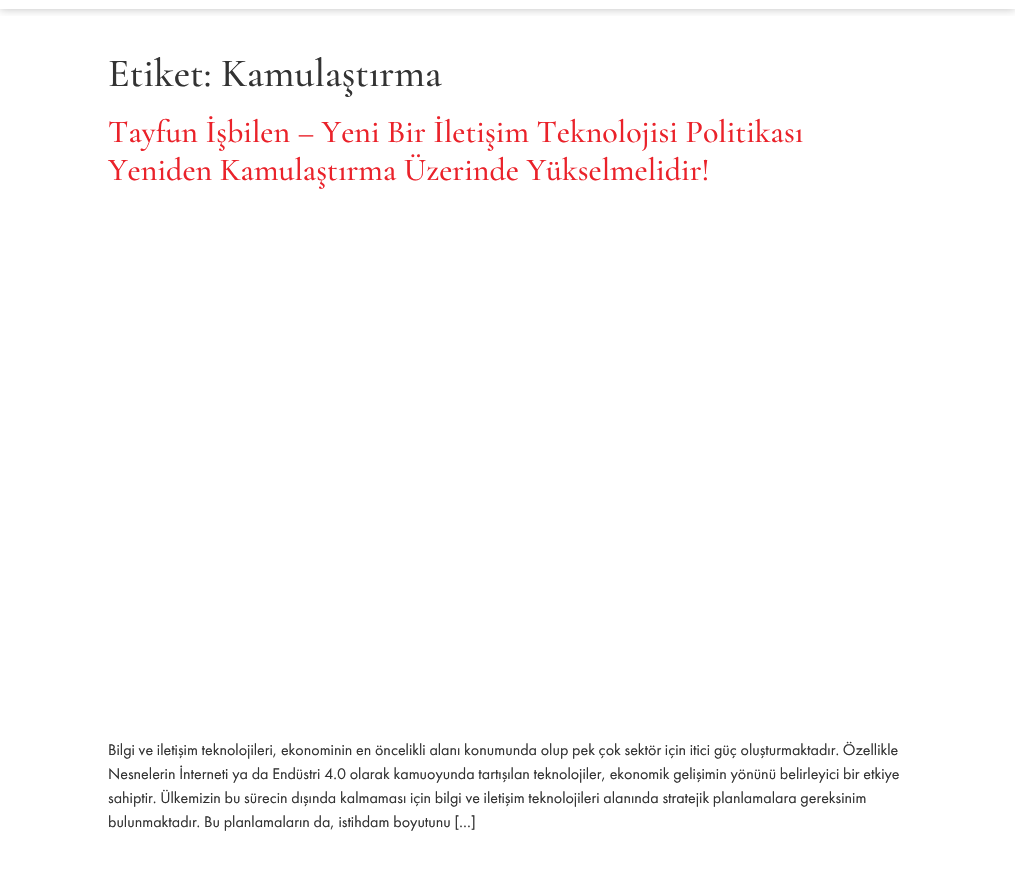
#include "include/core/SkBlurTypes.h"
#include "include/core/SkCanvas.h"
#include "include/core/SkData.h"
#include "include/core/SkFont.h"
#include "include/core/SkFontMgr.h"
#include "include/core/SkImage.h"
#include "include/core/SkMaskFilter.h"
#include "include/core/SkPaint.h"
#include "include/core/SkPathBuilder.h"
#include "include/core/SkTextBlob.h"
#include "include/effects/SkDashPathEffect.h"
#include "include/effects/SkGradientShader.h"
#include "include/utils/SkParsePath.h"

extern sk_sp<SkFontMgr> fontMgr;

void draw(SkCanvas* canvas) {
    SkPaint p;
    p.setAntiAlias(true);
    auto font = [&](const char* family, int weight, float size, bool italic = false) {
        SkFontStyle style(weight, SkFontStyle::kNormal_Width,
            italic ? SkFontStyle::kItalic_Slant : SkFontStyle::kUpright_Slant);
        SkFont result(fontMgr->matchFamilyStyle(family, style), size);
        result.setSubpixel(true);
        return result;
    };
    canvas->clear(0xFFFFFFFF);
    canvas->save();
    canvas->clipRect(SkRect::MakeLTRB(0, 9, 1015, 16));
    p.setColor(0x40000000);
    p.setMaskFilter(SkMaskFilter::MakeBlur(kNormal_SkBlurStyle, 5));
    canvas->drawRect(SkRect::MakeLTRB(0, -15, 1015, 9), p);
    p.setMaskFilter(nullptr);
    canvas->restore();
    auto font1 = font("Cormorant Garamond", 500, 40);
    p.setColor(0xFF333333);
    canvas->drawString("Etiket: Kamulaştırma", 108, 86, font1, p);
    auto font2 = font("Cormorant Garamond", 500, 32);
    p.setColor(0xFFEA222A);
    canvas->drawString("Tayfun İşbilen – Yeni Bir İletişim Teknolojisi Politikası", 108, 142, font2, p);
    canvas->drawString("Yeniden Kamulaştırma Üzerinde Yükselmelidir!", 108, 180, font2, p);
    auto font3 = font("Futura PT", 400, 16);
    p.setColor(0xFF333333);
    {
        const struct { const char* s; float x, y; } items[] = {
            {"Bilgi ve iletişim teknolojileri, ekonominin en öncelikli alanı konumunda olup pek çok sektör için itici güç oluşturmaktadır. Özellikle", 108, 755},
            {"Nesnelerin İnterneti ya da Endüstri 4.0 olarak kamuoyunda tartışılan teknolojiler, ekonomik gelişimin yönünü belirleyici bir etkiye", 108, 779},
            {"sahiptir. Ülkemizin bu sürecin dışında kalmaması için bilgi ve iletişim teknolojileri alanında stratejik planlamalara gereksinim", 108, 803},
            {"bulunmaktadır. Bu planlamaların da, istihdam boyutunu […]", 108, 827},
        };
        for (auto [s, x, y] : items) {
            canvas->drawString(s, x, y, font3, p);
        }
    }
}
